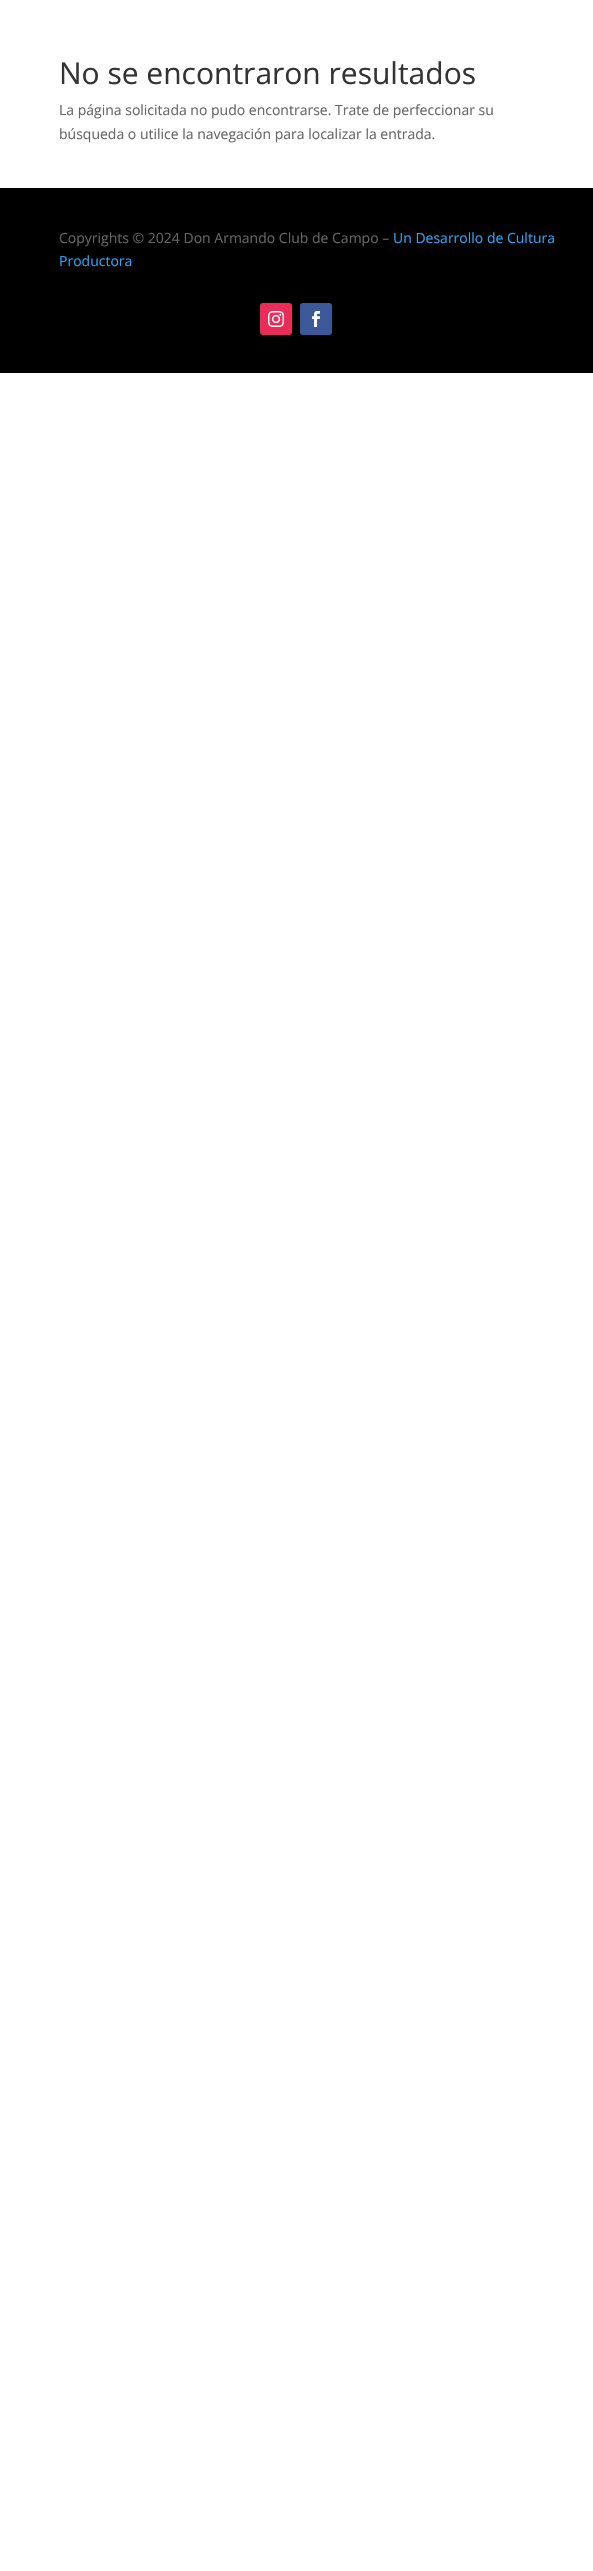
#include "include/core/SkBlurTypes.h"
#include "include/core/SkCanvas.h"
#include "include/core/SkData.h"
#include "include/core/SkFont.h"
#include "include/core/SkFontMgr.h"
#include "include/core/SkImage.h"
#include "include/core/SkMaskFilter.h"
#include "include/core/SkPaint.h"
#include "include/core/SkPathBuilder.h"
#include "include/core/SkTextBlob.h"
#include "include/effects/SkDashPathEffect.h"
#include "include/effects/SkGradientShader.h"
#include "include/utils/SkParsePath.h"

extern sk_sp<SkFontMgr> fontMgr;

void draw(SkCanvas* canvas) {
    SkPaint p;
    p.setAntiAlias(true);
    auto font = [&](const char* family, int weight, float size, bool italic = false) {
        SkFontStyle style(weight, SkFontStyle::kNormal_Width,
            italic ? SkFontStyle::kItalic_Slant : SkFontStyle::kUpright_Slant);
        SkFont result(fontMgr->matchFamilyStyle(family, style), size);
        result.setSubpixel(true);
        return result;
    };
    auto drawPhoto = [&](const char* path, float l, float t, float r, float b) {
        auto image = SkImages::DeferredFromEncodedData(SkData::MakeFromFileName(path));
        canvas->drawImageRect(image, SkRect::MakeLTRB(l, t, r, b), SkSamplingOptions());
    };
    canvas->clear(0xFFFFFFFF);
    auto font1 = font("Open Sans", 400, 30);
    p.setColor(0xFF333333);
    canvas->drawString("No se encontraron resultados", 59, 84, font1, p);
    auto font2 = font("Open Sans", 400, 14);
    p.setColor(0xFF666666);
    canvas->drawString("La página solicitada no pudo encontrarse. Trate de perfeccionar su", 59, 115, font2, p);
    canvas->drawString("búsqueda o utilice la navegación para localizar la entrada.", 59, 139, font2, p);
    p.setColor(0xFF000000);
    canvas->drawRect(SkRect::MakeLTRB(0, 188, 593, 373), p);
    p.setColor(0xFF666666);
    canvas->drawString("Copyrights © 2024 Don Armando Club de Campo –", 59, 243, font2, p);
    p.setColor(0xFF2EA3F2);
    canvas->drawString("Un Desarrollo de Cultura", 393, 243, font2, p);
    canvas->drawString("Productora", 59, 266, font2, p);
    p.setColor(0xFFEA2C59);
    canvas->drawRoundRect(SkRect::MakeLTRB(260, 303, 292, 335), 3, 3, p);
    drawPhoto("media/1.png", 268, 311, 284, 327);
    p.setColor(0xFF3B5998);
    canvas->drawRoundRect(SkRect::MakeLTRB(300, 303, 332, 335), 3, 3, p);
    drawPhoto("media/2.png", 312, 311, 320, 327);
}
